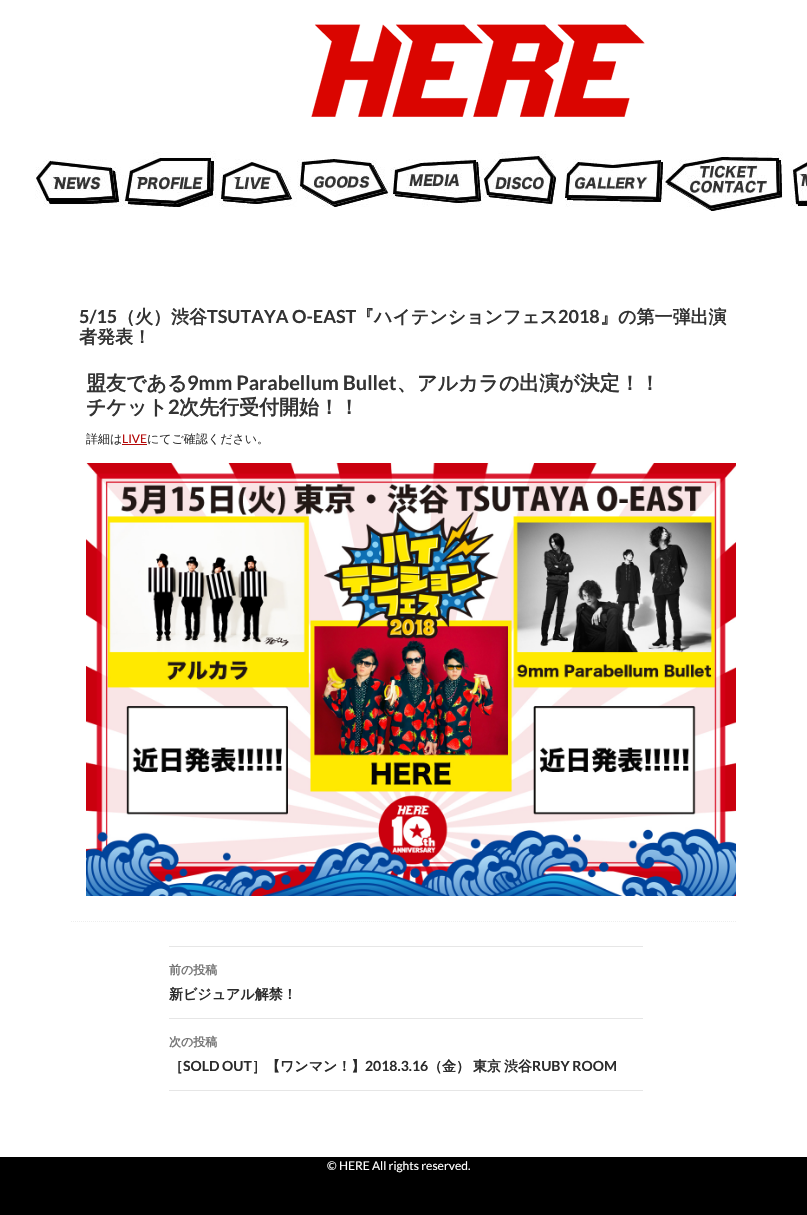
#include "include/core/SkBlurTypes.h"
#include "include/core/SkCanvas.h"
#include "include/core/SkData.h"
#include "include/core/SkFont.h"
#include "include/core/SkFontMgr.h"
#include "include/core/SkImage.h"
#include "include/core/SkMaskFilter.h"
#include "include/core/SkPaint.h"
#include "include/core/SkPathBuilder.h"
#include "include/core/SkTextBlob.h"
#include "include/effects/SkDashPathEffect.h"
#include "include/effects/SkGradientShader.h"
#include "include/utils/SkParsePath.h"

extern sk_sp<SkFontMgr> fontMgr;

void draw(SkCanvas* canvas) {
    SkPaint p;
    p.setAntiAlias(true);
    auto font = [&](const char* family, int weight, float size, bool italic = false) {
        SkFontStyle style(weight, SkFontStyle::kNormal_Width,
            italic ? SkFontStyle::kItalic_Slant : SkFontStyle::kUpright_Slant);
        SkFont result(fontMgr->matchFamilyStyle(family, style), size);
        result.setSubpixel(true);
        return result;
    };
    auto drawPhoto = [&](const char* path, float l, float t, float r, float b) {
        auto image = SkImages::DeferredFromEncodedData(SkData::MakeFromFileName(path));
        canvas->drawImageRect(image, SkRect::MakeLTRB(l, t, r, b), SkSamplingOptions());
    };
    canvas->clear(0xFFFFFFFF);
    drawPhoto("media/1.png", 311, 24, 645, 117);
    drawPhoto("media/2.png", 35, 159, 121, 207);
    drawPhoto("media/3.png", 121, 151, 217, 207);
    drawPhoto("media/4.png", 219, 159, 297, 207);
    drawPhoto("media/5.png", 297, 159, 390, 207);
    drawPhoto("media/6.png", 390, 159, 482, 207);
    drawPhoto("media/7.png", 482, 151, 557, 206);
    drawPhoto("media/8.png", 565, 159, 663, 207);
    drawPhoto("media/9.png", 663, 151, 783, 211);
    drawPhoto("media/10.png", 790, 161, 807, 207);
    auto font1 = font("Lato", 700, 18);
    p.setColor(0xFF333333);
    canvas->drawString("5/15", 79, 323, font1, p);
    auto font2 = font("WenQuanYi Zen Hei", 700, 18);
    canvas->drawString("（火）渋谷", 117, 323, font2, p);
    canvas->drawString("TSUTAYA O-EAST", 207, 323, font1, p);
    canvas->drawString("『ハイテンションフェス", 356, 323, font2, p);
    canvas->drawString("2018", 558, 323, font1, p);
    canvas->drawString("』の第一弾出演", 600, 323, font2, p);
    canvas->drawString("者発表！", 79, 343, font2, p);
    p.setStyle(SkPaint::kStroke_Style);
    p.setStrokeWidth(1);
    p.setColor(0xFFEEEEEE);
    p.setPathEffect(SkDashPathEffect::Make({{1, 1}}, 0));
    canvas->drawPath(SkPathBuilder().moveTo(71, 921.5f).lineTo(736, 921.5f).detach(), p);
    p.setPathEffect(nullptr);
    auto font3 = font("WenQuanYi Zen Hei", 700, 20);
    p.setStyle(SkPaint::kFill_Style);
    p.setColor(0xFF333333);
    canvas->drawString("盟友である", 86, 390, font3, p);
    auto font4 = font("Lato", 700, 20);
    canvas->drawString("9mm Parabellum Bullet", 187, 390, font4, p);
    canvas->drawString("、アルカラの出演が決定！！", 397, 390, font3, p);
    canvas->drawString("チケット", 86, 414, font3, p);
    canvas->drawString("2", 168, 414, font4, p);
    canvas->drawString("次先行受付開始！！", 179, 414, font3, p);
    auto font5 = font("WenQuanYi Zen Hei", 500, 12);
    canvas->drawString("詳細は", 86, 443, font5, p);
    auto font6 = font("Lato", 400, 12);
    p.setColor(0xFFB40808);
    canvas->drawString("LIVE", 122, 443, font6, p);
    canvas->drawRect(SkRect::MakeLTRB(122, 444, 147, 445), p);
    p.setColor(0xFF333333);
    canvas->drawString("にてご確認ください。", 147, 443, font5, p);
    drawPhoto("media/11.png", 86, 463, 736, 896);
    p.setColor(0xFFE6E6E6);
    canvas->drawRect(SkRect::MakeLTRB(169, 946, 643, 947), p);
    canvas->drawRect(SkRect::MakeLTRB(169, 1018, 643, 1019), p);
    auto font7 = font("WenQuanYi Zen Hei", 700, 12);
    p.setColor(0xFF767676);
    canvas->drawString("前の投稿", 169, 974, font7, p);
    auto font8 = font("WenQuanYi Zen Hei", 700, 14);
    p.setColor(0xFF2B2B2B);
    canvas->drawString("新ビジュアル解禁！", 169, 999, font8, p);
    p.setColor(0xFFE6E6E6);
    canvas->drawRect(SkRect::MakeLTRB(169, 1090, 643, 1091), p);
    p.setColor(0xFF767676);
    canvas->drawString("次の投稿", 169, 1046, font7, p);
    p.setColor(0xFF2B2B2B);
    canvas->drawString("［", 169, 1071, font8, p);
    auto font9 = font("Lato", 700, 14);
    canvas->drawString("SOLD OUT", 183, 1071, font9, p);
    canvas->drawString("］【ワンマン！】", 252, 1071, font8, p);
    canvas->drawString("2018.3.16", 365, 1071, font9, p);
    {
        const struct { const char* s; float x, y; } items[] = {
            {"（金）", 428, 1071},
            {"東京", 473, 1071},
            {"渋谷", 504, 1071},
        };
        for (auto [s, x, y] : items) {
            canvas->drawString(s, x, y, font8, p);
        }
    }
    canvas->drawString("RUBY ROOM", 532, 1071, font9, p);
    p.setColor(0xFF000000);
    canvas->drawRect(SkRect::MakeLTRB(0, 1157, 807, 1215), p);
    p.setColor(0xFFFFFFFF);
    canvas->drawString("© HERE All rights reserved.", 327, 1170, font6, p);
}
